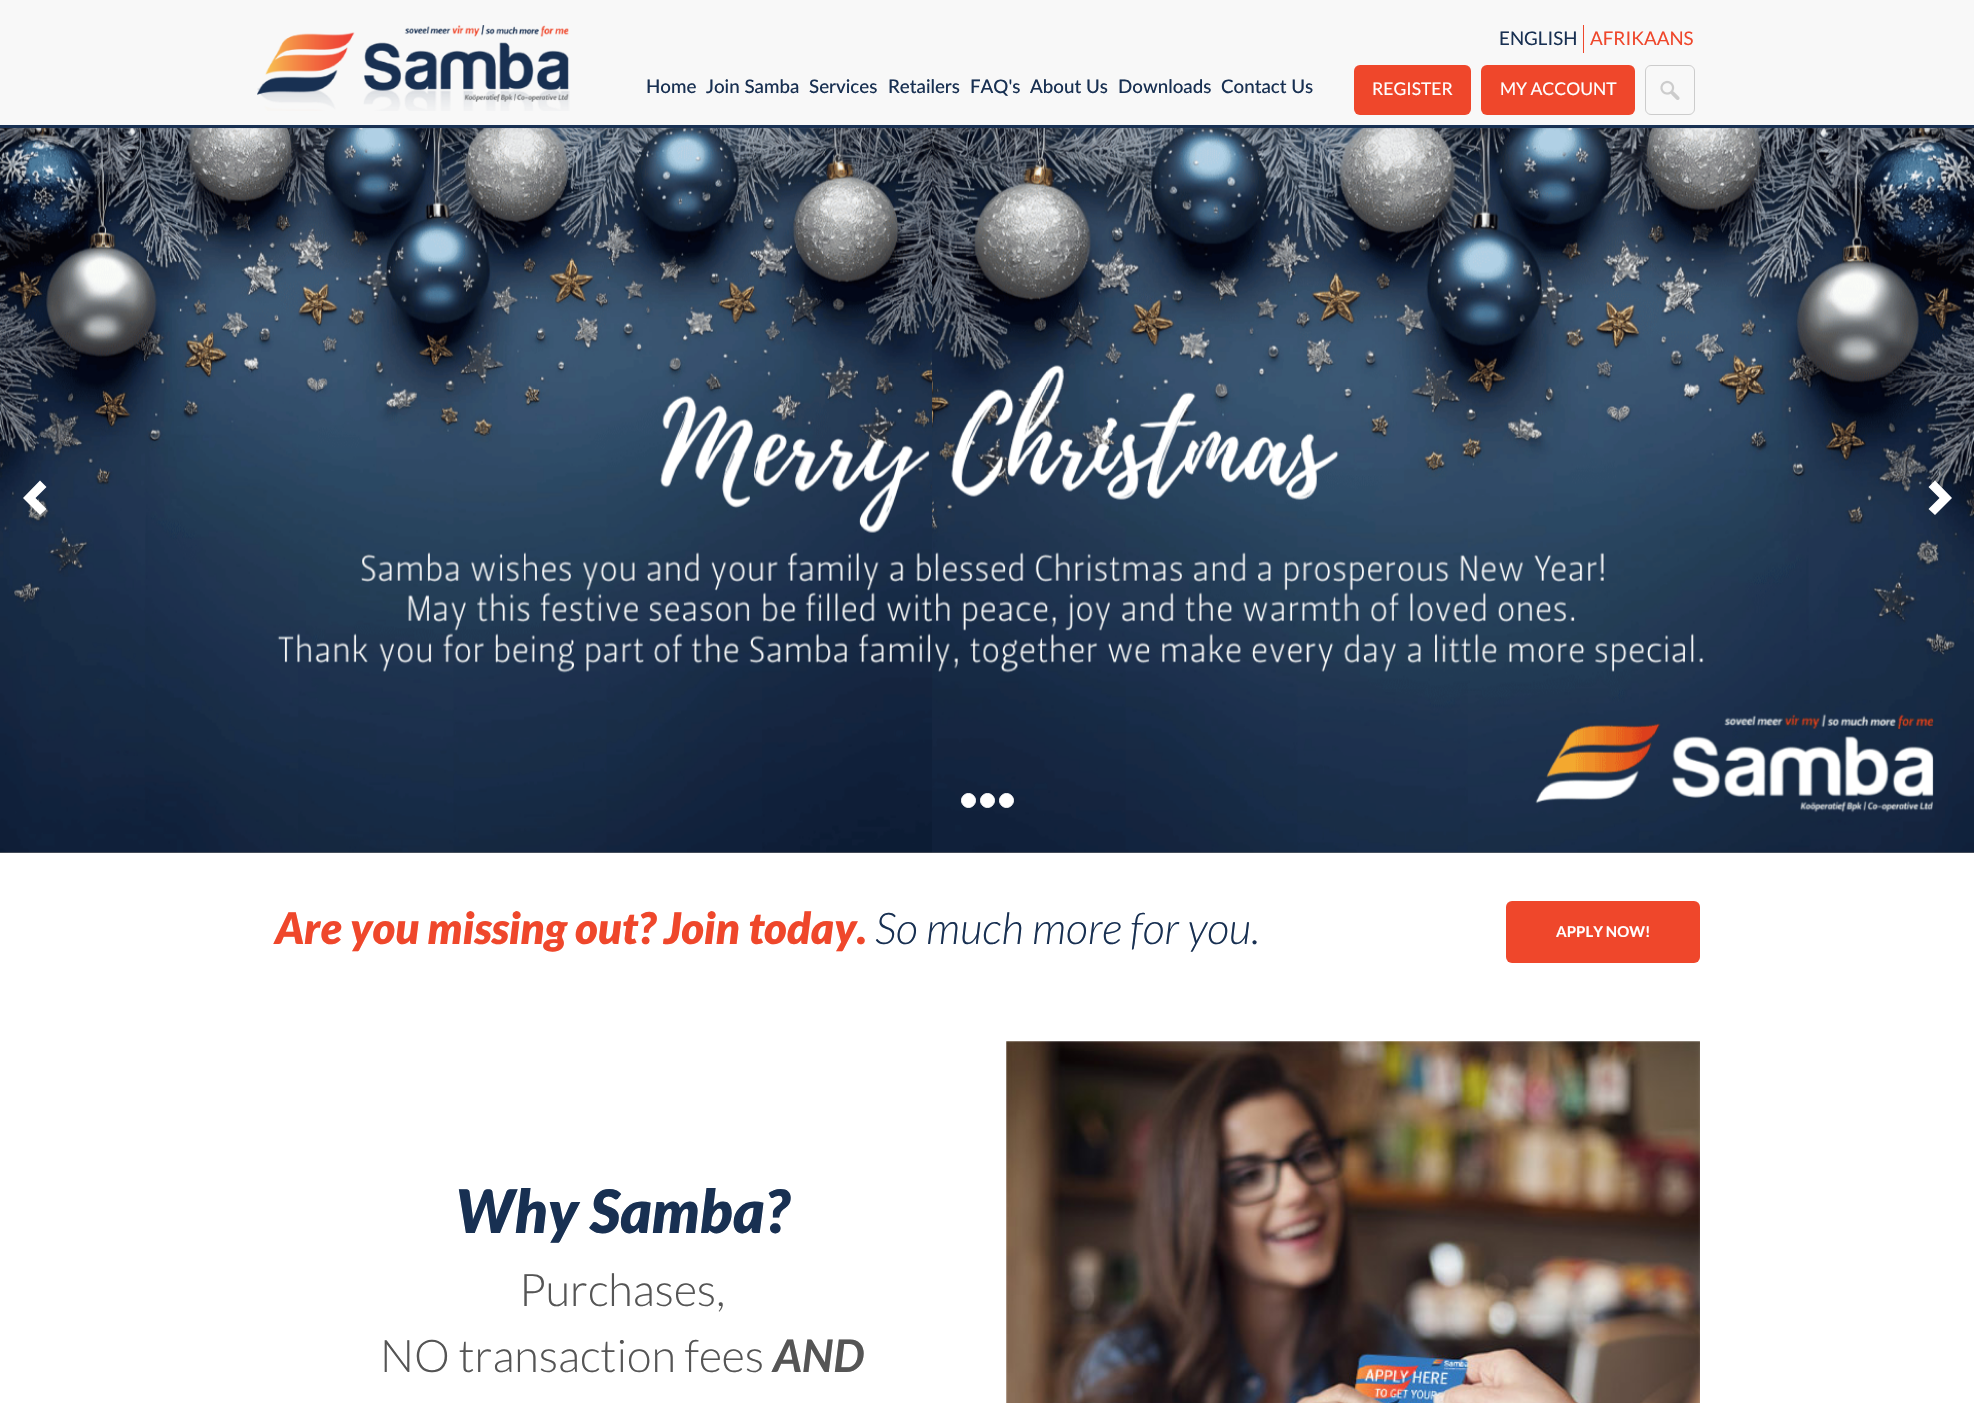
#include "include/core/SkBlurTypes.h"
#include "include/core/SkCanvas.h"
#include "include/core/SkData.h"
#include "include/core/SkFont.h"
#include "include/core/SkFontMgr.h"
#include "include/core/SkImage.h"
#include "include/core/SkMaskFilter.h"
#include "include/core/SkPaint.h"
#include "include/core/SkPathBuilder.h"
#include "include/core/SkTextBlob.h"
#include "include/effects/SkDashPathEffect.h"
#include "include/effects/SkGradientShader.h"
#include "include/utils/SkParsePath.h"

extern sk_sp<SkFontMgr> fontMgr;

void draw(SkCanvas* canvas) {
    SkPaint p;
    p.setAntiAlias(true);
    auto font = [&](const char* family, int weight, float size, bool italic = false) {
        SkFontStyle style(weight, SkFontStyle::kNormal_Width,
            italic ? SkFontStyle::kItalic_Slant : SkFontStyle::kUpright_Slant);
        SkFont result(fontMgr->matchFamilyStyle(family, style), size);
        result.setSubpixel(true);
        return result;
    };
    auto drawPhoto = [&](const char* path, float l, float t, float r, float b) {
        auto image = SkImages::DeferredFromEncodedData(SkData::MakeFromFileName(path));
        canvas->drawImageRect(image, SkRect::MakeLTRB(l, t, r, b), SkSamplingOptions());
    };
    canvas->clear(0xFFFFFFFF);
    p.setColor(0xFFF8F8F8);
    canvas->drawRect(SkRect::MakeLTRB(0, 0, 1974, 125), p);
    p.setColor(0xFF183052);
    canvas->drawRect(SkRect::MakeLTRB(0, 125, 1974, 128), p);
    drawPhoto("media/1.png", 257, 25, 570, 111);
    auto font1 = font("Lato", 500, 18.75f);
    {
        const struct { const char* s; float x, y; } items[] = {
            {"Home", 646, 93},
            {"Join Samba", 706, 93},
            {"Services", 809, 93},
            {"Retailers", 888, 93},
            {"FAQ's", 970, 93},
            {"About Us", 1030, 93},
            {"Downloads", 1118, 93},
            {"Contact Us", 1221, 93},
        };
        for (auto [s, x, y] : items) {
            canvas->drawString(s, x, y, font1, p);
        }
    }
    p.setColor(0xFFEF472B);
    canvas->drawRect(SkRect::MakeLTRB(1583, 25, 1584, 53), p);
    auto font2 = font("Lato", 400, 18.75f);
    p.setColor(0xFF183052);
    canvas->drawString("ENGLISH", 1499, 45, font2, p);
    p.setColor(0xFFEF472B);
    canvas->drawString("AFRIKAANS", 1590, 45, font2, p);
    canvas->drawRoundRect(SkRect::MakeLTRB(1354, 65, 1471, 115), 6, 6, p);
    auto font3 = font("Lato", 400, 17.5f);
    p.setColor(0xFFFFFFFF);
    canvas->drawString("REGISTER", 1372, 95, font3, p);
    p.setColor(0xFFEF472B);
    canvas->drawRoundRect(SkRect::MakeLTRB(1481, 65, 1635, 115), 6, 6, p);
    p.setColor(0xFFFFFFFF);
    canvas->drawString("MY ACCOUNT", 1500, 95, font3, p);
    p.setStyle(SkPaint::kStroke_Style);
    p.setStrokeWidth(1);
    p.setColor(0xFFCCCCCC);
    canvas->drawRoundRect(SkRect::MakeLTRB(1645.5f, 65.5f, 1694.5f, 114.5f), 5.5f, 5.5f, p);
    drawPhoto("media/2.png", 1660, 80, 1680, 100);
    p.setStyle(SkPaint::kFill_Style);
    p.setColor(0xFF777777);
    canvas->drawRect(SkRect::MakeLTRB(0, 128, 1974, 853), p);
    drawPhoto("media/3.png", 0, 128, 1974, 853);
    p.setColor(0xFFFFFFFF);
    canvas->drawPath(SkPathBuilder().moveTo(46.5f, 487).lineTo(35.5f, 498).lineTo(46.5f, 509).lineTo(40, 515).lineTo(23, 498).lineTo(40, 480.5f).close().detach(), p);
    canvas->drawPath(SkPathBuilder().moveTo(1952, 498).lineTo(1935, 515).lineTo(1928.5f, 509).lineTo(1939.5f, 498).lineTo(1928.5f, 487).lineTo(1935, 480.5f).close().detach(), p);
    canvas->drawCircle(968.5f, 800.5f, 7, p);
    p.setStyle(SkPaint::kStroke_Style);
    canvas->drawCircle(968.5f, 800.5f, 7, p);
    p.setStyle(SkPaint::kFill_Style);
    canvas->drawCircle(987.5f, 800.5f, 7, p);
    p.setStyle(SkPaint::kStroke_Style);
    canvas->drawCircle(987.5f, 800.5f, 7, p);
    p.setStyle(SkPaint::kFill_Style);
    canvas->drawCircle(1006.5f, 800.5f, 7, p);
    p.setStyle(SkPaint::kStroke_Style);
    canvas->drawCircle(1006.5f, 800.5f, 7, p);
    auto font4 = font("Lato", 900, 43.75f, true);
    p.setStyle(SkPaint::kFill_Style);
    p.setColor(0xFFEF472B);
    canvas->drawString("Are you missing out? Join today.", 275, 944, font4, p);
    auto font5 = font("Lato", 300, 43.75f, true);
    p.setColor(0xFF183052);
    canvas->drawString("So much more for you.", 875, 944, font5, p);
    p.setColor(0xFFEF472B);
    canvas->drawRoundRect(SkRect::MakeLTRB(1506, 901, 1700, 963), 6, 6, p);
    auto font6 = font("Lato", 700, 15);
    p.setColor(0xFFFFFFFF);
    canvas->drawString("APPLY NOW!", 1556, 937, font6, p);
    auto font7 = font("Lato", 900, 60, true);
    p.setColor(0xFF183052);
    canvas->drawString("Why Samba?", 455, 1233, font7, p);
    auto font8 = font("Lato", 300, 45);
    p.setColor(0xFF555555);
    canvas->drawString("Purchases,", 519, 1306, font8, p);
    canvas->drawString("NO transaction fees", 380, 1372, font8, p);
    auto font9 = font("Lato", 700, 45, true);
    canvas->drawString("AND", 773, 1372, font9, p);
    drawPhoto("media/4.png", 1006, 1041, 1700, 1403);
}
